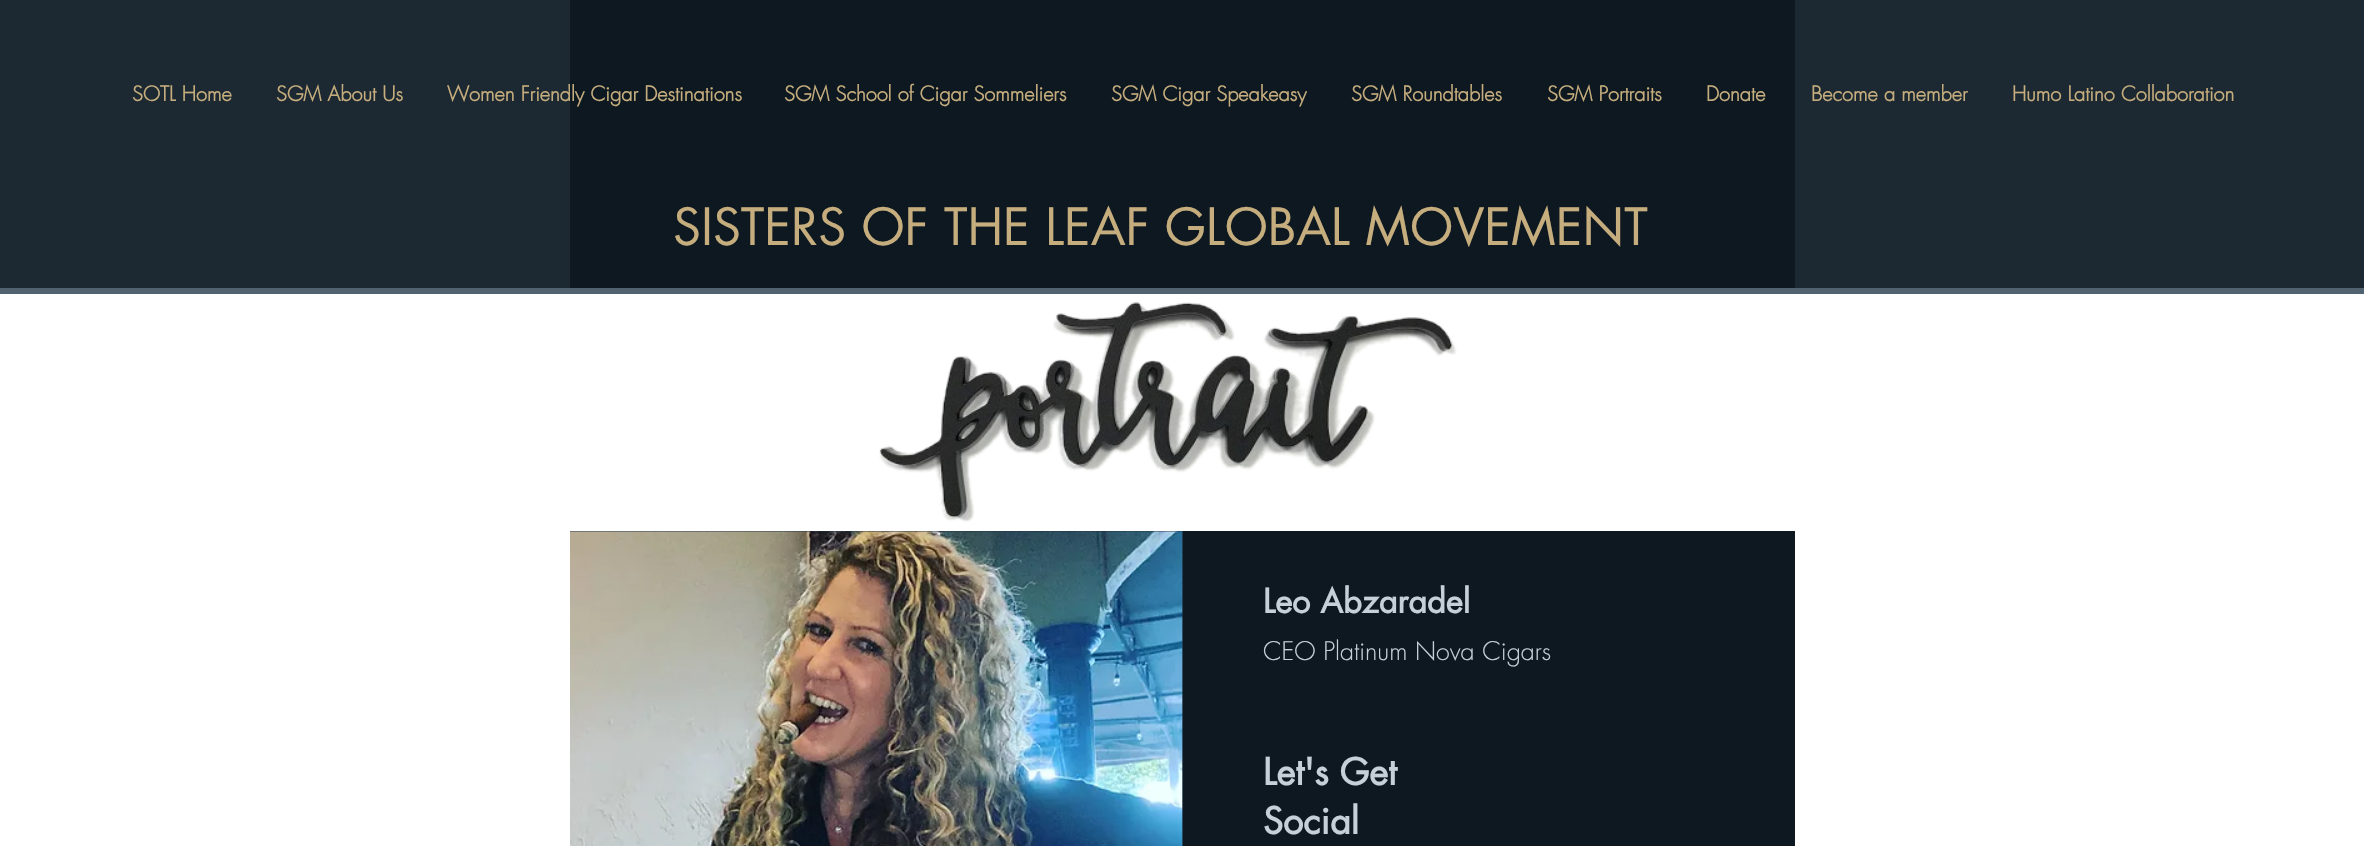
#include "include/core/SkBlurTypes.h"
#include "include/core/SkCanvas.h"
#include "include/core/SkData.h"
#include "include/core/SkFont.h"
#include "include/core/SkFontMgr.h"
#include "include/core/SkImage.h"
#include "include/core/SkMaskFilter.h"
#include "include/core/SkPaint.h"
#include "include/core/SkPathBuilder.h"
#include "include/core/SkTextBlob.h"
#include "include/effects/SkDashPathEffect.h"
#include "include/effects/SkGradientShader.h"
#include "include/utils/SkParsePath.h"

extern sk_sp<SkFontMgr> fontMgr;

void draw(SkCanvas* canvas) {
    SkPaint p;
    p.setAntiAlias(true);
    auto font = [&](const char* family, int weight, float size, bool italic = false) {
        SkFontStyle style(weight, SkFontStyle::kNormal_Width,
            italic ? SkFontStyle::kItalic_Slant : SkFontStyle::kUpright_Slant);
        SkFont result(fontMgr->matchFamilyStyle(family, style), size);
        result.setSubpixel(true);
        return result;
    };
    auto drawPhoto = [&](const char* path, float l, float t, float r, float b) {
        auto image = SkImages::DeferredFromEncodedData(SkData::MakeFromFileName(path));
        canvas->drawImageRect(image, SkRect::MakeLTRB(l, t, r, b), SkSamplingOptions());
    };
    canvas->clear(0xFFFFFFFF);
    {
        const struct { float l, t, r, b; SkColor color; } items[] = {
            {0, 0, 2364, 288, 0xFF1D2932},
            {0, 288, 2364, 294, 0xFF516371},
            {570, 0, 1795, 288, 0xFF0E1821},
        };
        for (auto [l, t, r, b, color] : items) {
            p.setColor(color);
            canvas->drawRect(SkRect::MakeLTRB(l, t, r, b), p);
        }
    }
    auto font1 = font("futura", 700, 20);
    p.setColor(0xFFC5AD7D);
    {
        const struct { const char* s; float x, y; } items[] = {
            {"SOTL Home", 132, 101},
            {"SGM About Us", 276, 101},
            {"Women Friendly Cigar Destinations", 447, 101},
            {"SGM School of Cigar Sommeliers", 784, 101},
            {"SGM Cigar Speakeasy", 1111, 101},
            {"SGM Roundtables", 1351, 101},
            {"SGM Portraits", 1547, 101},
            {"Donate", 1706, 101},
            {"Become a member", 1811, 101},
            {"Humo Latino Collaboration", 2012, 101},
        };
        for (auto [s, x, y] : items) {
            canvas->drawString(s, x, y, font1, p);
        }
    }
    auto font2 = font("futura", 400, 50);
    canvas->drawString("SISTERS OF THE LEAF GLOBAL MOVEMENT", 673, 245, font2, p);
    drawPhoto("media/1.png", 879, 302, 1457, 522);
    p.setColor(0xFF0E1821);
    canvas->drawRect(SkRect::MakeLTRB(1183, 531, 1795, 846), p);
    p.setColor(0xFF1C3142);
    canvas->drawRect(SkRect::MakeLTRB(570, 531, 1183, 846), p);
    drawPhoto("media/2.png", 570, 531, 1183, 846);
    auto font3 = font("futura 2", 700, 32.5f);
    p.setColor(0xFFC5D0D9);
    canvas->drawString("Leo Abzaradel", 1263, 613, font3, p);
    auto font4 = font("futura", 300, 25);
    canvas->drawString("CEO Platinum Nova Cigars", 1263, 660, font4, p);
    auto font5 = font("futura 2", 700, 36);
    canvas->drawString("Let's Get", 1263, 785, font5, p);
    canvas->drawString("Social", 1263, 834, font5, p);
}
